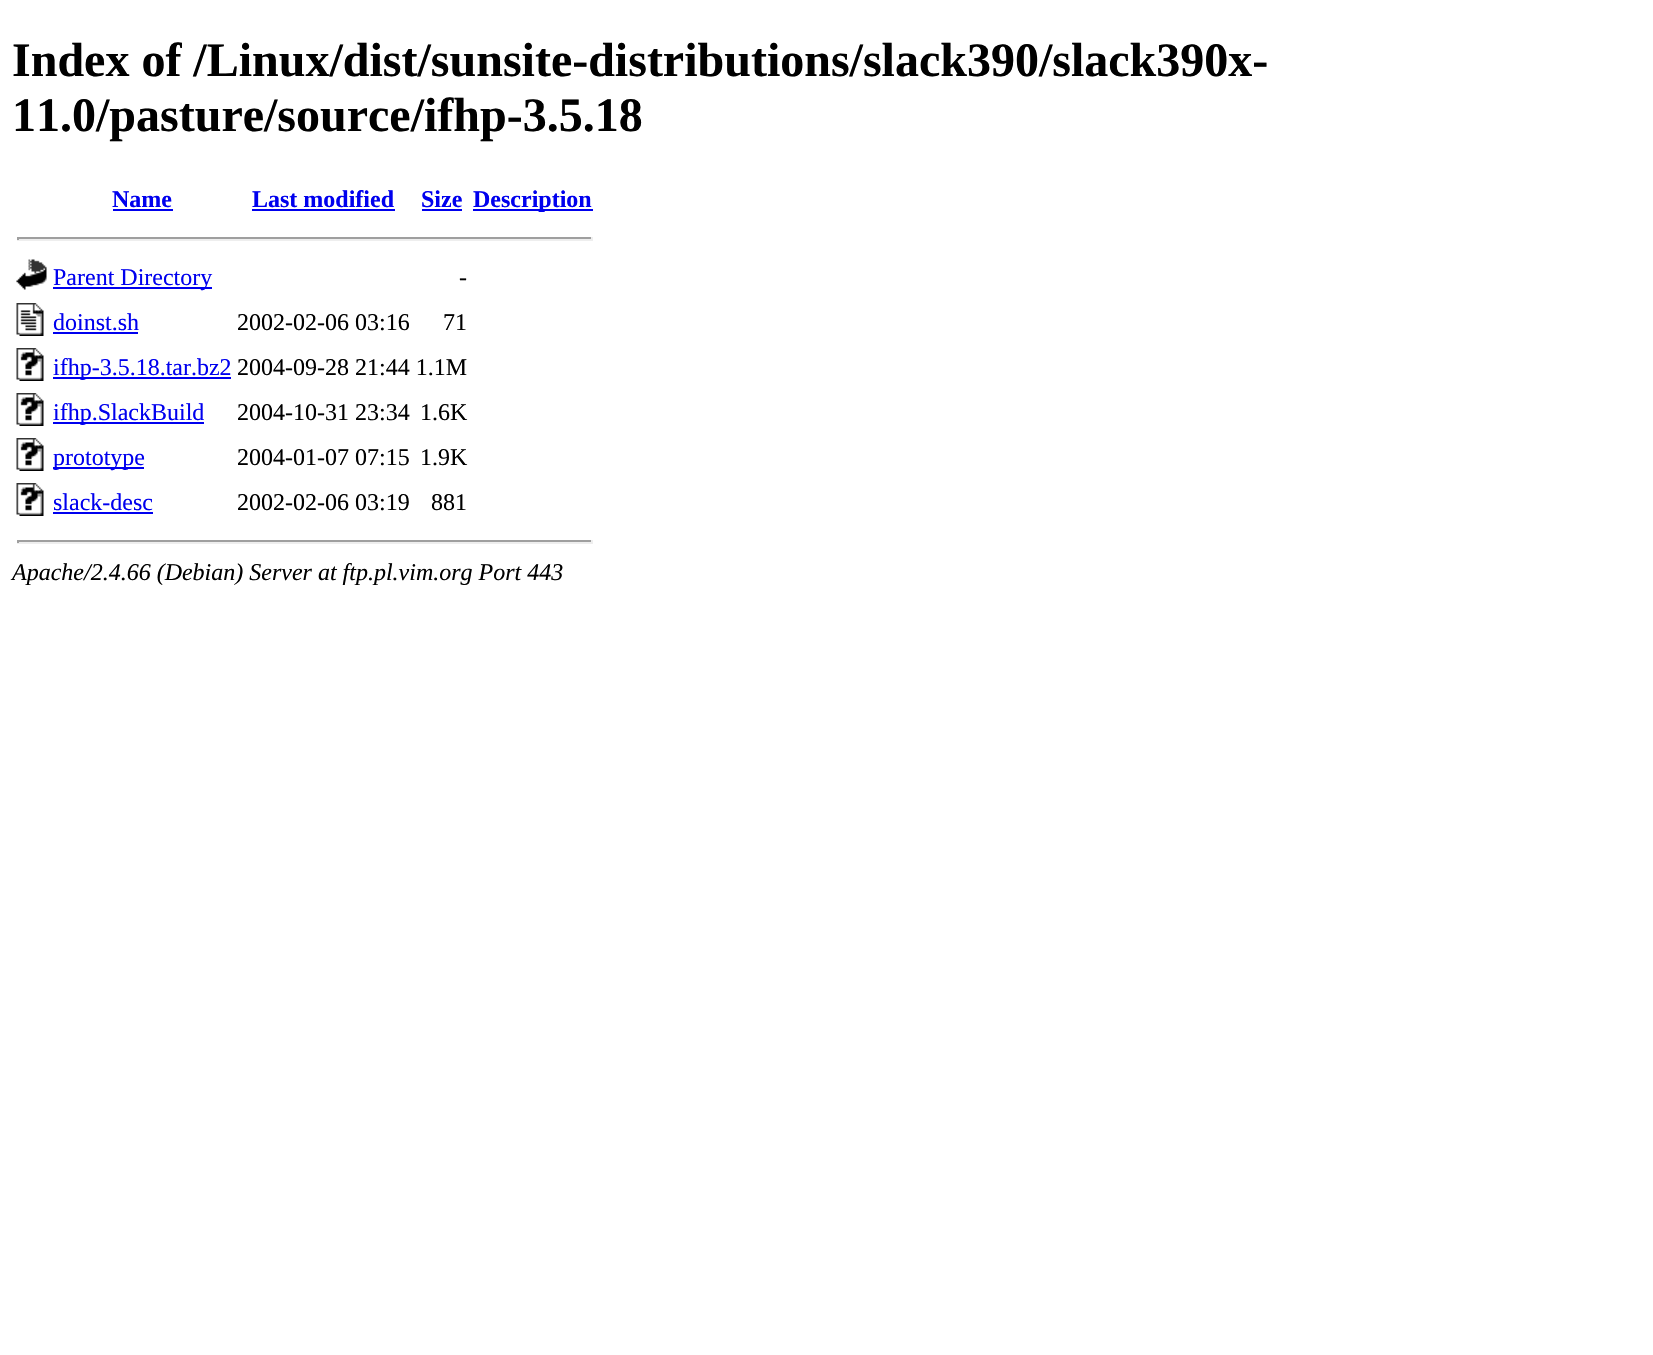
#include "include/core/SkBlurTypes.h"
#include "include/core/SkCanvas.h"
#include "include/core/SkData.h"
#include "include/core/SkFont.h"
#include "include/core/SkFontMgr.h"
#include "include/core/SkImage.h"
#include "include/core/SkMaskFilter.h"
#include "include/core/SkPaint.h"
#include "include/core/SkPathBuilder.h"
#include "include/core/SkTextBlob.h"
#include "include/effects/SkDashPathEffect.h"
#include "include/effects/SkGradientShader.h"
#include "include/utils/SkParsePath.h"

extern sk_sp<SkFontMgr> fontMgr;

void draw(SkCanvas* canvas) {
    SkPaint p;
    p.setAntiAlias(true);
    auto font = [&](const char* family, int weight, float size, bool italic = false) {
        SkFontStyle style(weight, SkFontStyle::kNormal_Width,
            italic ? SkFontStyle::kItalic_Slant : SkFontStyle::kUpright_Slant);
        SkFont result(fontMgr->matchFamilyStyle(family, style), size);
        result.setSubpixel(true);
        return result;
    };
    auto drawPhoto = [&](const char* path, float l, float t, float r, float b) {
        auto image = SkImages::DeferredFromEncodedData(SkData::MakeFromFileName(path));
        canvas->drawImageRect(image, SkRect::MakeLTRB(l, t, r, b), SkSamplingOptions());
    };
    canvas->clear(0xFFFFFFFF);
    auto font1 = font("Liberation Serif", 700, 48);
    p.setColor(0xFF000000);
    canvas->drawString("Index of /Linux/dist/sunsite-distributions/slack390/slack390x-", 12, 76, font1, p);
    canvas->drawString("11.0/pasture/source/ifhp-3.5.18", 12, 131, font1, p);
    auto font2 = font("Liberation Serif", 700, 24);
    p.setColor(0xFF0000EE);
    canvas->drawString("Name", 112, 207, font2, p);
    canvas->drawRect(SkRect::MakeLTRB(113, 209, 173, 211), p);
    canvas->drawString("Last modified", 252, 207, font2, p);
    canvas->drawRect(SkRect::MakeLTRB(252, 209, 395, 211), p);
    canvas->drawString("Size", 421, 207, font2, p);
    canvas->drawRect(SkRect::MakeLTRB(422, 209, 462, 211), p);
    canvas->drawRect(SkRect::MakeLTRB(473, 209, 593, 211), p);
    canvas->drawString("Description", 473, 207, font2, p);
    {
        const struct { float l, t, r, b; SkColor color; } items[] = {
            {17, 237, 593, 239, 0xFF9F9F9F},
            {591, 237, 593, 240, 0xFFEEEEEE},
            {17, 239, 593, 241, 0xFFEEEEEE},
            {17, 237, 19, 240, 0xFF9F9F9F},
        };
        for (auto [l, t, r, b, color] : items) {
            p.setColor(color);
            canvas->drawRect(SkRect::MakeLTRB(l, t, r, b), p);
        }
    }
    drawPhoto("media/1.png", 16, 259, 47, 290);
    p.setColor(0xFF0000EE);
    canvas->drawRect(SkRect::MakeLTRB(53, 287, 212, 289), p);
    auto font3 = font("Liberation Serif", 400, 24);
    canvas->drawString("Parent Directory", 53, 285, font3, p);
    p.setColor(0xFF000000);
    canvas->drawString("-", 459, 285, font3, p);
    drawPhoto("media/2.png", 16, 303, 44, 336);
    p.setColor(0xFF0000EE);
    canvas->drawString("doinst.sh", 53, 330, font3, p);
    canvas->drawRect(SkRect::MakeLTRB(53, 332, 138, 334), p);
    p.setColor(0xFF000000);
    canvas->drawString("2002-02-06 03:16", 237, 330, font3, p);
    canvas->drawString("71", 443, 330, font3, p);
    drawPhoto("media/3.png", 16, 348, 44, 381);
    p.setColor(0xFF0000EE);
    canvas->drawRect(SkRect::MakeLTRB(53, 377, 231, 379), p);
    canvas->drawString("ifhp-3.5.18.tar.bz2", 53, 375, font3, p);
    p.setColor(0xFF000000);
    canvas->drawString("2004-09-28 21:44 1.1M", 237, 375, font3, p);
    drawPhoto("media/3.png", 16, 393, 44, 426);
    p.setColor(0xFF0000EE);
    canvas->drawRect(SkRect::MakeLTRB(53, 422, 204, 424), p);
    canvas->drawString("ifhp.SlackBuild", 53, 420, font3, p);
    p.setColor(0xFF000000);
    canvas->drawString("2004-10-31 23:34", 237, 420, font3, p);
    canvas->drawString("1.6K", 420, 420, font3, p);
    drawPhoto("media/3.png", 16, 438, 44, 471);
    p.setColor(0xFF0000EE);
    canvas->drawRect(SkRect::MakeLTRB(53, 467, 144, 469), p);
    canvas->drawString("prototype", 53, 465, font3, p);
    p.setColor(0xFF000000);
    canvas->drawString("2004-01-07 07:15", 237, 465, font3, p);
    canvas->drawString("1.9K", 420, 465, font3, p);
    drawPhoto("media/3.png", 16, 483, 44, 516);
    p.setColor(0xFF0000EE);
    canvas->drawString("slack-desc", 53, 510, font3, p);
    canvas->drawRect(SkRect::MakeLTRB(53, 512, 153, 514), p);
    p.setColor(0xFF000000);
    canvas->drawString("2002-02-06 03:19", 237, 510, font3, p);
    canvas->drawString("881", 431, 510, font3, p);
    {
        const struct { float l, t, r, b; SkColor color; } items[] = {
            {17, 540, 593, 542, 0xFF9F9F9F},
            {591, 540, 593, 543, 0xFFEEEEEE},
            {17, 542, 593, 544, 0xFFEEEEEE},
            {17, 540, 19, 543, 0xFF9F9F9F},
        };
        for (auto [l, t, r, b, color] : items) {
            p.setColor(color);
            canvas->drawRect(SkRect::MakeLTRB(l, t, r, b), p);
        }
    }
    auto font4 = font("Liberation Serif", 400, 24, true);
    p.setColor(0xFF000000);
    canvas->drawString("Apache/2.4.66 (Debian) Server at ftp.pl.vim.org Port 443", 12, 580, font4, p);
}
